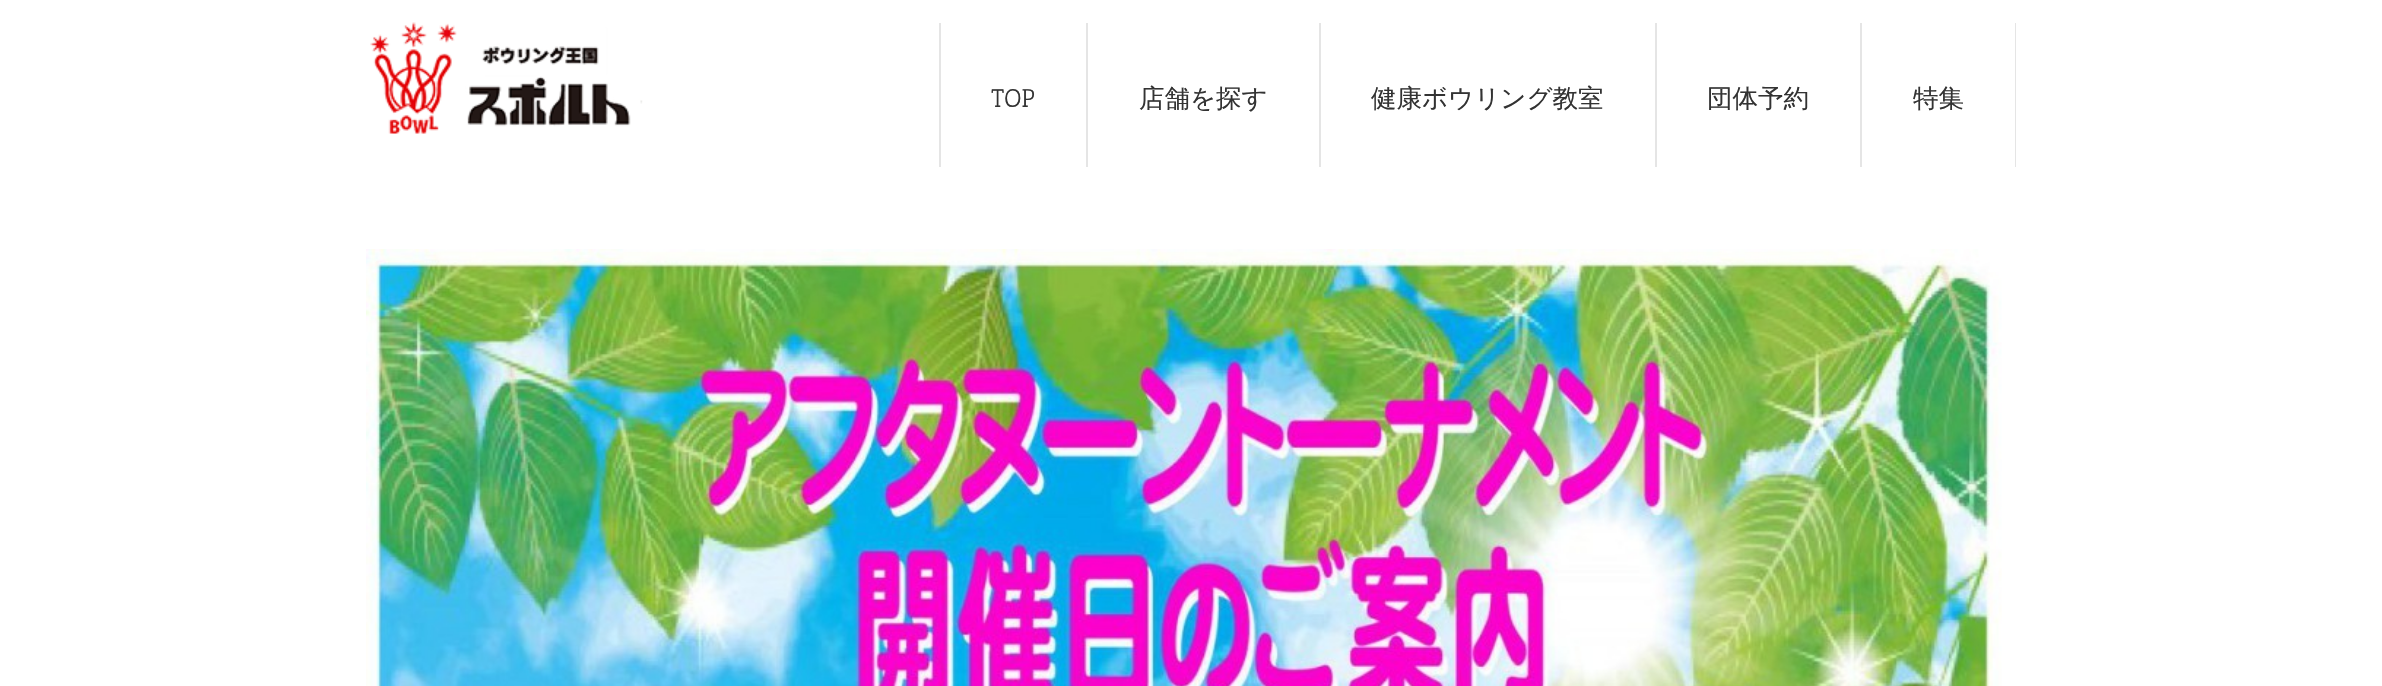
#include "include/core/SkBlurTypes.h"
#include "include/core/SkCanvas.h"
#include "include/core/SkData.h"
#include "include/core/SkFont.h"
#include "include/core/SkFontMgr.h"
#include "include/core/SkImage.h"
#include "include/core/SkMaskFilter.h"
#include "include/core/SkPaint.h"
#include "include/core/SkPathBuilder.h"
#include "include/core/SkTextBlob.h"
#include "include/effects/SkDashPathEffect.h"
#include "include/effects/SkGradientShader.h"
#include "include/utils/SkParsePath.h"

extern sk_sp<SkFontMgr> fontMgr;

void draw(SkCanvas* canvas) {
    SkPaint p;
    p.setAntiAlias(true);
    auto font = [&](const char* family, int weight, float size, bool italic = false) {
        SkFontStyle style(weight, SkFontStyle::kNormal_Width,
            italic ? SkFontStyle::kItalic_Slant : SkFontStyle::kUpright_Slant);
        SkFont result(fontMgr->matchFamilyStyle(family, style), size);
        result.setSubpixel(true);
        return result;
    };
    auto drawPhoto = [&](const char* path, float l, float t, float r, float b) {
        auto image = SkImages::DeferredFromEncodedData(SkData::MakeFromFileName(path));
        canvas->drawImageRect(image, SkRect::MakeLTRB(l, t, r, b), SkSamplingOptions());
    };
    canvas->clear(0xFFFFFFFF);
    drawPhoto("media/1.png", 370, 22, 643, 134);
    p.setColor(0xFFE5E5E5);
    canvas->drawRect(SkRect::MakeLTRB(1086, 23, 1088, 167), p);
    canvas->drawRect(SkRect::MakeLTRB(939, 23, 941, 167), p);
    auto font1 = font("Antic Slab", 400, 25.5f);
    p.setColor(0xFF333333);
    canvas->drawString("TOP", 991, 107, font1, p);
    p.setColor(0xFFE5E5E5);
    canvas->drawRect(SkRect::MakeLTRB(1319, 23, 1321, 167), p);
    auto font2 = font("WenQuanYi Zen Hei", 500, 25.5f);
    p.setColor(0xFF333333);
    canvas->drawString("店舗を探す", 1139, 107, font2, p);
    p.setColor(0xFFE5E5E5);
    canvas->drawRect(SkRect::MakeLTRB(1655, 23, 1657, 167), p);
    p.setColor(0xFF333333);
    canvas->drawString("健康ボウリング教室", 1371, 107, font2, p);
    p.setColor(0xFFE5E5E5);
    canvas->drawRect(SkRect::MakeLTRB(1860, 23, 1862, 167), p);
    p.setColor(0xFF333333);
    canvas->drawString("団体予約", 1707, 107, font2, p);
    p.setColor(0xFFE5E5E5);
    canvas->drawRect(SkRect::MakeLTRB(2015, 23, 2016, 167), p);
    p.setColor(0xFF333333);
    canvas->drawString("特集", 1913, 107, font2, p);
    drawPhoto("media/2.png", 366, 249, 2002, 686);
}
